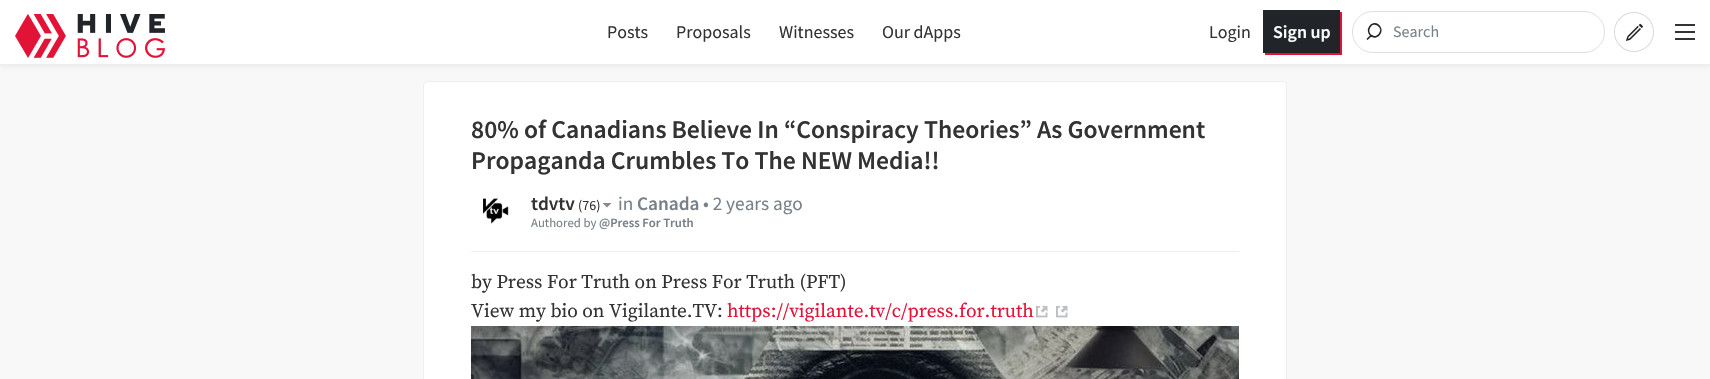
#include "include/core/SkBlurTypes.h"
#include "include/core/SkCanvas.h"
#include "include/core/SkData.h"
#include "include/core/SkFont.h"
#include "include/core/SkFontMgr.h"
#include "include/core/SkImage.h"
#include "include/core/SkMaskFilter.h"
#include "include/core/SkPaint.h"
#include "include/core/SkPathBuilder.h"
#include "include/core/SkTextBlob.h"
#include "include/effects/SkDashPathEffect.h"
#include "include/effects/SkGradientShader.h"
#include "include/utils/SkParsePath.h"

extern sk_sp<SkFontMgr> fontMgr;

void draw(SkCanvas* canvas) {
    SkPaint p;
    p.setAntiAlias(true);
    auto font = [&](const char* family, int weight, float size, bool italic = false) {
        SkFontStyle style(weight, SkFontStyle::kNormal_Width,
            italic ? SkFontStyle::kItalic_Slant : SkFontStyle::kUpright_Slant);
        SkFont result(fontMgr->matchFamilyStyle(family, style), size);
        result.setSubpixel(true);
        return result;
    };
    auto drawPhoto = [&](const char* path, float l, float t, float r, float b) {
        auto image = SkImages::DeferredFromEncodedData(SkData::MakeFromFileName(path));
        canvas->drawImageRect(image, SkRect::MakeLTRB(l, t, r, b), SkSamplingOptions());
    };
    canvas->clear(0xFFF8F8F8);
    p.setColor(0x0D000000);
    p.setMaskFilter(SkMaskFilter::MakeBlur(kNormal_SkBlurStyle, 2));
    canvas->drawRect(SkRect::MakeLTRB(0, 2, 1710, 67), p);
    p.setMaskFilter(nullptr);
    p.setColor(0xFFFFFFFF);
    canvas->drawRect(SkRect::MakeLTRB(0, 0, 1710, 64), p);
    p.setColor(0xFFEEEEEE);
    canvas->drawRect(SkRect::MakeLTRB(0, 64, 1710, 65), p);
    drawPhoto("media/1.png", 15, 14, 165, 58);
    auto font1 = font("Source Sans Pro", 400, 18);
    p.setColor(0xFF333333);
    {
        const struct { const char* s; float x, y; } items[] = {
            {"Posts", 607, 38},
            {"Proposals", 676, 38},
            {"Witnesses", 779, 38},
            {"Our dApps", 882, 38},
            {"Login", 1209, 38},
        };
        for (auto [s, x, y] : items) {
            canvas->drawString(s, x, y, font1, p);
        }
    }
    p.setColor(0xFFE31337);
    canvas->drawPath(SkPathBuilder().moveTo(1265, 53).lineTo(1265, 55).lineTo(1342, 55).lineTo(1342, 12).lineTo(1340, 12).lineTo(1340, 53).close().detach(), p);
    p.setColor(0xFF212529);
    canvas->drawRect(SkRect::MakeLTRB(1263, 10, 1340, 53), p);
    auto font2 = font("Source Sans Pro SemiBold", 600, 18);
    p.setColor(0xFFFCFCFC);
    canvas->drawString("Sign up", 1273, 38, font2, p);
    p.setStyle(SkPaint::kStroke_Style);
    p.setStrokeWidth(1);
    p.setColor(0xFFDFDFDF);
    canvas->drawRoundRect(SkRect::MakeLTRB(1352.5f, 11.5f, 1604.5f, 52.5f), 20.5f, 20.5f, p);
    p.setStrokeWidth(1.6f);
    p.setColor(0xFF212529);
    canvas->drawPath(SkPathBuilder().moveTo(1371, 35.5f).lineTo(1367, 39.5f).lineTo(1371, 35.5f).cubicTo(1365, 30.5f, 1371.5f, 20.5f, 1378, 25).cubicTo(1385, 30, 1377.5f, 40.5f, 1371, 35.5f).close().detach(), p);
    auto font3 = font("Source Sans Pro", 400, 16);
    p.setStyle(SkPaint::kFill_Style);
    p.setColor(0xFF788187);
    canvas->drawString("Search", 1393, 37, font3, p);
    drawPhoto("media/2.png", 1614, 12, 1654, 52);
    {
        const struct { float l, t, r, b; SkColor color; } items[] = {
            {1675, 38, 1695, 40, 0xFF333333},
            {1675, 31, 1695, 33, 0xFF333333},
            {1675, 24, 1695, 26, 0xFF333333},
        };
        for (auto [l, t, r, b, color] : items) {
            p.setColor(color);
            canvas->drawRect(SkRect::MakeLTRB(l, t, r, b), p);
        }
    }
    p.setColor(0xFFFFFFFF);
    canvas->drawRoundRect(SkRect::MakeLTRB(423.5f, 81.5f, 1286.5f, 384.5f), 4.5f, 4.5f, p);
    p.setStyle(SkPaint::kStroke_Style);
    p.setStrokeWidth(1);
    p.setColor(0xFFEEEEEE);
    canvas->drawRoundRect(SkRect::MakeLTRB(423.5f, 81.5f, 1286.5f, 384.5f), 4.5f, 4.5f, p);
    p.setStyle(SkPaint::kFill_Style);
    canvas->drawRect(SkRect::MakeLTRB(471, 251, 1239, 252), p);
    auto font4 = font("Source Sans Pro SemiBold", 600, 25.6f);
    p.setColor(0xFF333333);
    canvas->drawString("80% of Canadians Believe In “Conspiracy Theories” As Government", 471, 138, font4, p);
    canvas->drawString("Propaganda Crumbles To The NEW Media!!", 471, 169, font4, p);
    drawPhoto("media/3.png", 483, 198, 509, 224);
    auto font5 = font("Source Sans Pro SemiBold", 600, 19.25f);
    canvas->drawString("tdvtv", 531, 210, font5, p);
    auto font6 = font("Source Sans Pro", 400, 14);
    canvas->drawString("(76)", 578, 210, font6, p);
    p.setColor(0xFF8A8A8A);
    canvas->drawPath(SkPathBuilder().moveTo(602.5f, 203).lineTo(607, 207.5f).lineTo(611.5f, 203).close().detach(), p);
    auto font7 = font("Source Sans Pro", 400, 19.25f);
    p.setColor(0xFF788187);
    canvas->drawString("in", 618, 210, font7, p);
    canvas->drawString("Canada", 637, 210, font5, p);
    canvas->drawString("• 2 years ago", 703, 210, font7, p);
    auto font8 = font("Source Sans Pro", 400, 12.75f);
    canvas->drawString("Authored by", 531, 227, font8, p);
    auto font9 = font("Source Sans Pro SemiBold", 600, 12.75f);
    canvas->drawString("@Press For Truth", 599, 227, font9, p);
    auto font10 = font("Source Serif Pro", 400, 19.25f);
    p.setColor(0xFF333333);
    canvas->drawString("by Press For Truth on Press For Truth (PFT)", 471, 288, font10, p);
    canvas->drawString("View my bio on Vigilante.TV:", 471, 317, font10, p);
    p.setColor(0xFFE31337);
    canvas->drawString("https://vigilante.tv/c/press.for.truth", 727, 317, font10, p);
    drawPhoto("media/4.png", 1036, 305, 1048, 318);
    drawPhoto("media/4.png", 1056, 305, 1068, 318);
    drawPhoto("media/5.png", 471, 326, 1239, 379);
}
